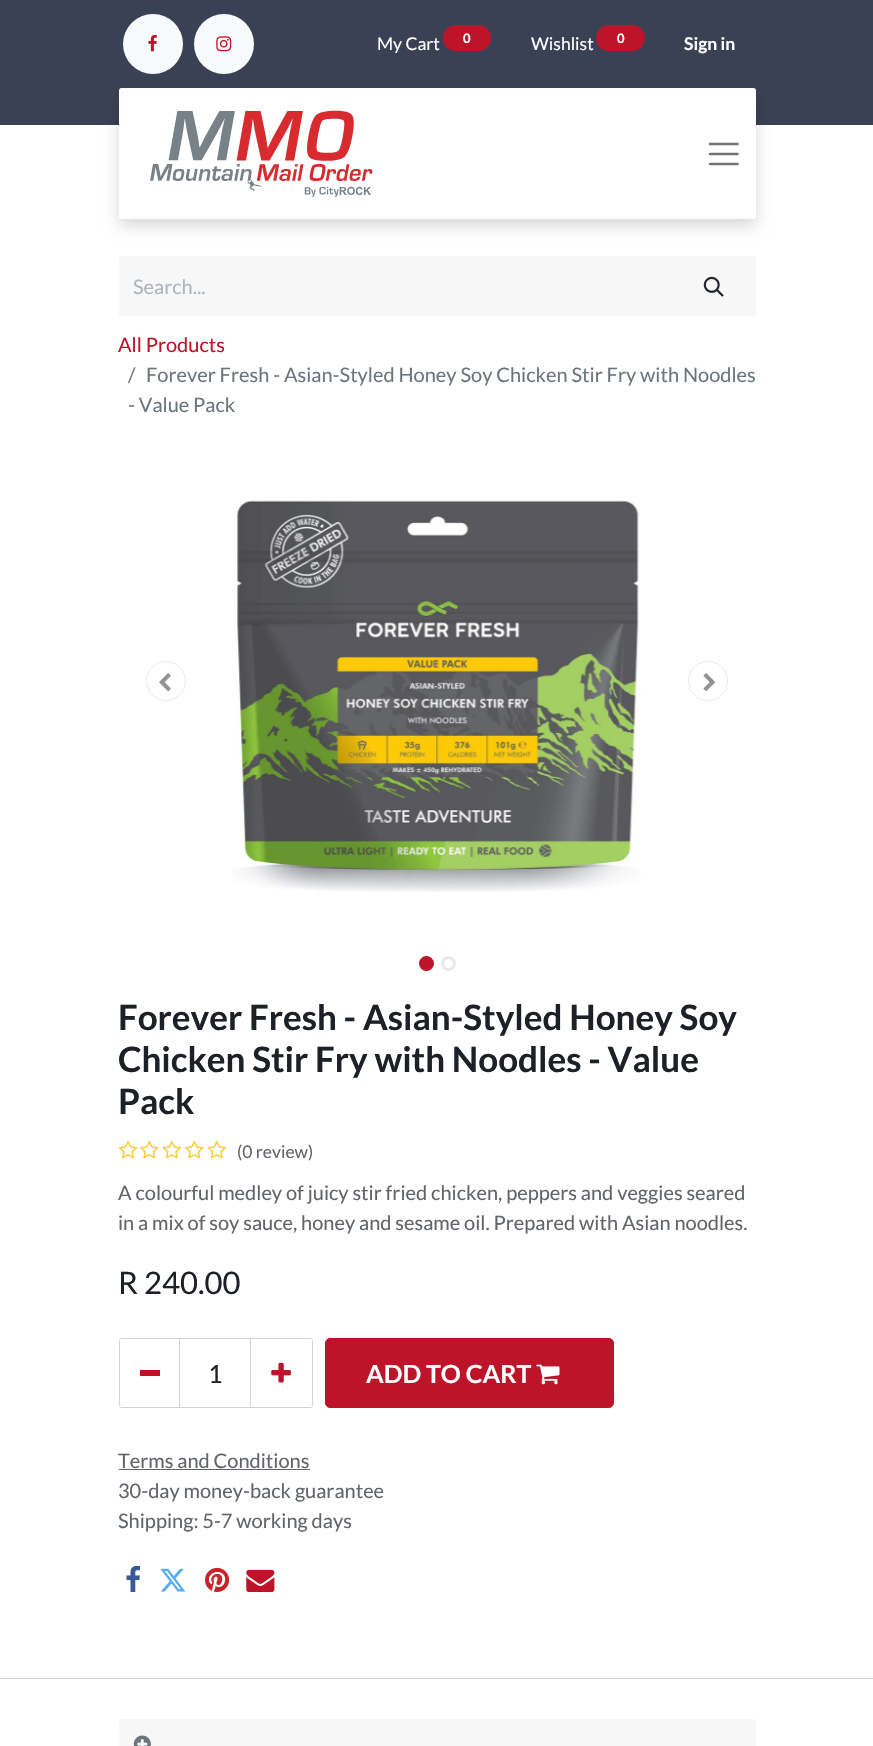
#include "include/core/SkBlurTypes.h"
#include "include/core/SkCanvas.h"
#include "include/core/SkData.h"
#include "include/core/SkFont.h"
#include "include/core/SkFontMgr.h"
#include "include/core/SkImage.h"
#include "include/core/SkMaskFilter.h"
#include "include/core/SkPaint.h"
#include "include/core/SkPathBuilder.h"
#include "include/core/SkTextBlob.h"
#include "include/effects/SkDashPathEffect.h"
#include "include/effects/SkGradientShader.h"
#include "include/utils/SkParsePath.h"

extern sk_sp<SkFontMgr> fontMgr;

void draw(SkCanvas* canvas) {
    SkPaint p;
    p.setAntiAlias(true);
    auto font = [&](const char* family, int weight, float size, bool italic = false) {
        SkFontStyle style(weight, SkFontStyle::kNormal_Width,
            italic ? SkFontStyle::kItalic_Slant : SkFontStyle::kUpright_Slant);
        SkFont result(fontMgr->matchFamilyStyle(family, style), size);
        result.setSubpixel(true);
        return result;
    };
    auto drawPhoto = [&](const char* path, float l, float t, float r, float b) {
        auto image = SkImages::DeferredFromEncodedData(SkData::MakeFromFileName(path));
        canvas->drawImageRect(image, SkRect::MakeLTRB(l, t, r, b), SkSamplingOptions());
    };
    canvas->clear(0xFFFFFFFF);
    p.setColor(0xFF3B4154);
    canvas->drawRect(SkRect::MakeLTRB(0, 0, 873, 125), p);
    p.setColor(0xFFF8F9FA);
    canvas->drawCircle(153, 44, 30, p);
    drawPhoto("media/1.png", 148, 35, 157, 52);
    canvas->drawCircle(224, 44, 30, p);
    drawPhoto("media/2.png", 216, 36, 232, 52);
    auto font1 = font("Lato", 400, 17.5f);
    p.setColor(0xFFFFFFFF);
    canvas->drawString("My Cart", 377, 50, font1, p);
    p.setColor(0xFFBD142A);
    canvas->drawRoundRect(SkRect::MakeLTRB(443, 25, 491, 51), 13, 13, p);
    auto font2 = font("Lato", 700, 13);
    p.setColor(0xFFFFFFFF);
    canvas->drawString("0", 463, 43, font2, p);
    canvas->drawString("Wishlist", 531, 50, font1, p);
    p.setColor(0xFFBD142A);
    canvas->drawRoundRect(SkRect::MakeLTRB(596, 25, 645, 51), 13, 13, p);
    p.setColor(0xFFFFFFFF);
    canvas->drawString("0", 617, 43, font2, p);
    auto font3 = font("Lato", 700, 17.5f);
    canvas->drawString("Sign in", 684, 50, font3, p);
    p.setColor(0x26000000);
    p.setMaskFilter(SkMaskFilter::MakeBlur(kNormal_SkBlurStyle, 7.5f));
    canvas->drawRoundRect(SkRect::MakeLTRB(119, 95, 756, 226), 2.5f, 2.5f, p);
    p.setMaskFilter(nullptr);
    p.setColor(0xFFFFFFFF);
    canvas->drawRoundRect(SkRect::MakeLTRB(119, 88, 756, 219), 2.5f, 2.5f, p);
    drawPhoto("media/3.png", 150, 110, 373, 197);
    p.setStyle(SkPaint::kStroke_Style);
    p.setStrokeWidth(2.5f);
    p.setStrokeCap(SkPaint::kRound_Cap);
    p.setColor(0xFF737373);
    canvas->drawPath(SkPathBuilder().moveTo(710, 144).lineTo(737.5f, 144).moveTo(710, 154).lineTo(737.5f, 154).moveTo(710, 164).lineTo(737.5f, 164).detach(), p);
    p.setStyle(SkPaint::kFill_Style);
    p.setColor(0xFFF7F7F7);
    canvas->drawPath(SkPathBuilder().moveTo(121.5f, 256).lineTo(674, 256).lineTo(674, 316).lineTo(121.5f, 316).cubicTo(120, 316, 119, 315, 119, 313.5f).lineTo(119, 258.5f).cubicTo(119, 257, 120, 256, 121.5f, 256).close().detach(), p);
    auto font4 = font("Lato", 400, 20);
    p.setColor(0xFFADB5BD);
    canvas->drawString("Search...", 133, 294, font4, p);
    p.setColor(0xFFF7F7F7);
    canvas->drawPath(SkPathBuilder().moveTo(673, 256).lineTo(753.5f, 256).cubicTo(755, 256, 756, 257, 756, 258.5f).lineTo(756, 313.5f).cubicTo(756, 315, 755, 316, 753.5f, 316).lineTo(673, 316).close().detach(), p);
    drawPhoto("media/4.png", 703, 276, 724, 297);
    p.setColor(0xFFBD142A);
    canvas->drawString("All Products", 118, 352, font4, p);
    p.setColor(0xFF6C757D);
    {
        const struct { const char* s; float x, y; } items[] = {
            {"/", 128, 382},
            {"Forever Fresh - Asian-Styled Honey Soy Chicken Stir Fry with Noodles", 146, 382},
            {"- Value Pack", 128, 412},
        };
        for (auto [s, x, y] : items) {
            canvas->drawString(s, x, y, font4, p);
        }
    }
    p.setStyle(SkPaint::kStroke_Style);
    p.setStrokeWidth(1);
    p.setStrokeCap(SkPaint::kButt_Cap);
    p.setColor(0xFFE7EAED);
    canvas->drawCircle(166, 681, 19.5f, p);
    drawPhoto("media/5.png", 159, 673, 171, 692);
    drawPhoto("media/6.png", 232, 500, 641, 892);
    canvas->drawCircle(708, 681, 19.5f, p);
    drawPhoto("media/7.png", 703, 673, 715, 691);
    p.setStyle(SkPaint::kFill_Style);
    p.setColor(0xFFBD142A);
    canvas->drawCircle(426.5f, 963.5f, 6, p);
    p.setStyle(SkPaint::kStroke_Style);
    p.setStrokeWidth(3);
    canvas->drawCircle(426.5f, 963.5f, 6, p);
    p.setColor(0xFFE7EAED);
    canvas->drawCircle(448.5f, 963.5f, 6, p);
    auto font5 = font("Lato", 700, 35);
    p.setStyle(SkPaint::kFill_Style);
    p.setColor(0xFF1D2127);
    {
        const struct { const char* s; float x, y; } items[] = {
            {"Forever Fresh - Asian-Styled Honey Soy", 118, 1030},
            {"Chicken Stir Fry with Noodles - Value", 118, 1072},
            {"Pack", 118, 1114},
        };
        for (auto [s, x, y] : items) {
            canvas->drawString(s, x, y, font5, p);
        }
    }
    drawPhoto("media/8.png", 118, 1140, 138, 1159);
    drawPhoto("media/9.png", 140, 1140, 159, 1159);
    drawPhoto("media/10.png", 162, 1140, 181, 1159);
    drawPhoto("media/9.png", 185, 1140, 204, 1159);
    drawPhoto("media/10.png", 207, 1140, 226, 1159);
    p.setColor(0xFF616468);
    canvas->drawString("(0 review)", 237, 1158, font1, p);
    canvas->drawString("A colourful medley of juicy stir fried chicken, peppers and veggies seared", 118, 1200, font4, p);
    canvas->drawString("in a mix of soy sauce, honey and sesame oil. Prepared with Asian noodles.", 118, 1230, font4, p);
    auto font6 = font("Lato", 400, 31);
    p.setColor(0xFF1D2127);
    canvas->drawString("R 240.00", 118, 1294, font6, p);
    p.setStyle(SkPaint::kStroke_Style);
    p.setStrokeWidth(1);
    p.setColor(0xFFCED4DA);
    canvas->drawRect(SkRect::MakeLTRB(179.5f, 1338.5f, 250.5f, 1407.5f), p);
    canvas->drawPath(SkPathBuilder().moveTo(121.5f, 1338.5f).lineTo(179.5f, 1338.5f).lineTo(179.5f, 1407.5f).lineTo(121.5f, 1407.5f).cubicTo(120.5f, 1407.5f, 119.5f, 1406.5f, 119.5f, 1405.5f).lineTo(119.5f, 1340.5f).cubicTo(119.5f, 1339.5f, 120.5f, 1338.5f, 121.5f, 1338.5f).close().detach(), p);
    p.setStyle(SkPaint::kFill_Style);
    p.setColor(0xFFBD142A);
    canvas->drawRect(SkRect::MakeLTRB(140, 1370, 160, 1376), p);
    auto font7 = font("Lato", 400, 25);
    p.setColor(0xFF1D2127);
    canvas->drawString("1", 208, 1383, font7, p);
    p.setStyle(SkPaint::kStroke_Style);
    p.setColor(0xFFCED4DA);
    canvas->drawPath(SkPathBuilder().moveTo(250.5f, 1338.5f).lineTo(310.5f, 1338.5f).cubicTo(311.5f, 1338.5f, 312.5f, 1339.5f, 312.5f, 1340.5f).lineTo(312.5f, 1405.5f).cubicTo(312.5f, 1406.5f, 311.5f, 1407.5f, 310.5f, 1407.5f).lineTo(250.5f, 1407.5f).close().detach(), p);
    drawPhoto("media/11.png", 271, 1362, 291, 1383);
    p.setStyle(SkPaint::kFill_Style);
    p.setColor(0xFFBD142A);
    canvas->drawRoundRect(SkRect::MakeLTRB(325.5f, 1338.5f, 613.5f, 1407.5f), 4.5f, 4.5f, p);
    p.setStyle(SkPaint::kStroke_Style);
    canvas->drawRoundRect(SkRect::MakeLTRB(325.5f, 1338.5f, 613.5f, 1407.5f), 4.5f, 4.5f, p);
    auto font8 = font("Lato", 700, 25);
    p.setStyle(SkPaint::kFill_Style);
    p.setColor(0xFFFFFFFF);
    canvas->drawString("ADD TO CART", 366, 1383, font8, p);
    drawPhoto("media/12.png", 536, 1364, 560, 1385);
    p.setColor(0xFF616468);
    canvas->drawString("Terms and Conditions", 118, 1468, font4, p);
    canvas->drawRect(SkRect::MakeLTRB(119, 1469, 310, 1470), p);
    canvas->drawString("30-day money-back guarantee", 118, 1498, font4, p);
    canvas->drawString("Shipping: 5-7 working days", 118, 1528, font4, p);
    drawPhoto("media/13.png", 126, 1565, 141, 1592);
    drawPhoto("media/14.png", 160, 1568, 186, 1592);
    drawPhoto("media/15.png", 205, 1567, 230, 1592);
    drawPhoto("media/16.png", 246, 1569, 275, 1592);
    p.setColor(0xFFCED4DA);
    canvas->drawRect(SkRect::MakeLTRB(0, 1678, 873, 1679), p);
    p.setColor(0xFFF7F7F7);
    canvas->drawPath(SkPathBuilder().moveTo(124, 1719).lineTo(751, 1719).cubicTo(754, 1719, 756, 1721, 756, 1724).lineTo(756, 1746).lineTo(119, 1746).lineTo(119, 1724).cubicTo(119, 1721, 121, 1719, 124, 1719).close().detach(), p);
    drawPhoto("media/17.png", 133, 1735, 151, 1746);
}
